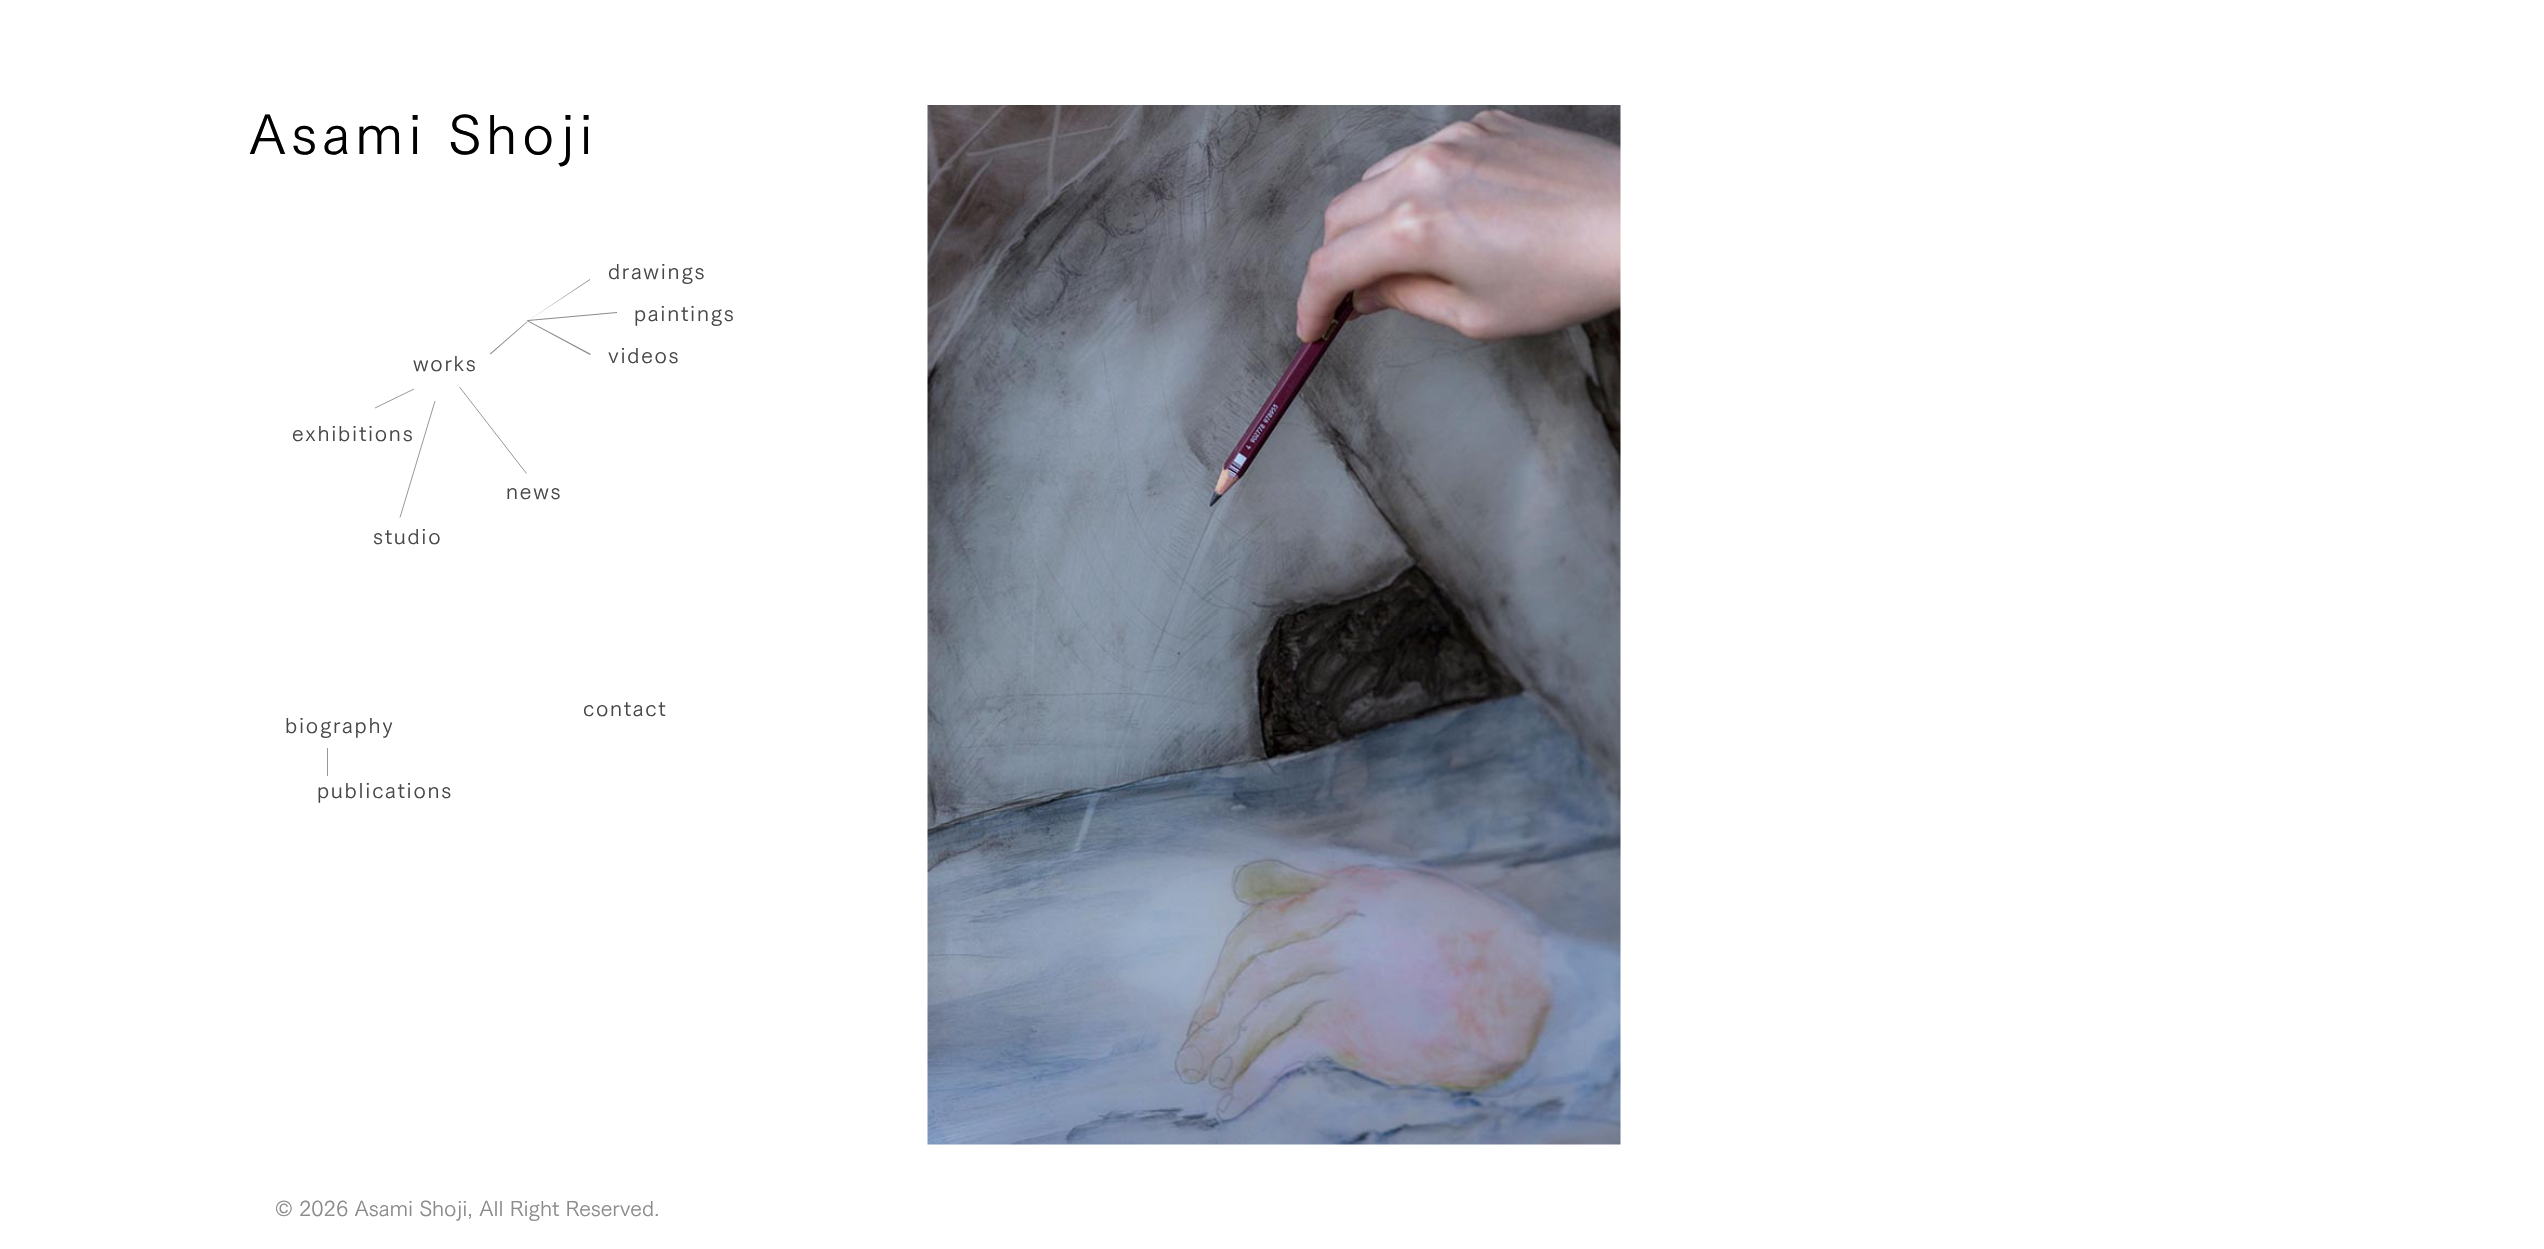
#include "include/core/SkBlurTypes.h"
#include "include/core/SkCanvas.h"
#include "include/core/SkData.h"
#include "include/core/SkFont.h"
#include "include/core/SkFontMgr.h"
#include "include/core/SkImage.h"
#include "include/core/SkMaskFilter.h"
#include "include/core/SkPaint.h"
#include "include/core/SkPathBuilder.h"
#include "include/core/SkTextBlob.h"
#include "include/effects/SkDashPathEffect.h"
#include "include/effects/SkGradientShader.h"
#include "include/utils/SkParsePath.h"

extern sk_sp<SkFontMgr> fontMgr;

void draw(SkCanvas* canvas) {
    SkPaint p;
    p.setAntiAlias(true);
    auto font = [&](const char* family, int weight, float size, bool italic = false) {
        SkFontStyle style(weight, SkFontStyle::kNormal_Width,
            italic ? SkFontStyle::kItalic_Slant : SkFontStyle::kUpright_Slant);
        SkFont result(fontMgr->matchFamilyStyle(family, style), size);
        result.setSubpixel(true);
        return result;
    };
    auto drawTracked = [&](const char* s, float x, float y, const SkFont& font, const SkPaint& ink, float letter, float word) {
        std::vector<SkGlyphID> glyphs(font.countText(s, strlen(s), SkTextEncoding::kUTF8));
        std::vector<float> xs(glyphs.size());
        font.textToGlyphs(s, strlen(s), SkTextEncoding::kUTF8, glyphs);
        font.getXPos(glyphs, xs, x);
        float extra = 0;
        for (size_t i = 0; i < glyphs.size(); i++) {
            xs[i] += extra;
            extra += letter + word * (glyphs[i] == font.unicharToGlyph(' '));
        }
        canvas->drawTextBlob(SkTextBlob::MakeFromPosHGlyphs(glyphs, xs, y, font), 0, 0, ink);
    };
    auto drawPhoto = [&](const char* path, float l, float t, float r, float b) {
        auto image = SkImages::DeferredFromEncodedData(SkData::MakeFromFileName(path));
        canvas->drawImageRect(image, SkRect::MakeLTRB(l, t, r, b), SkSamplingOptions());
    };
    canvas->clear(0xFFFFFFFF);
    auto font1 = font("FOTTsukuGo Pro", 400, 54.25f);
    p.setColor(0xFF000000);
    drawTracked("Asami Shoji", 249, 154, font1, p, 5.25f, 0);
    p.setStyle(SkPaint::kStroke_Style);
    p.setStrokeWidth(0.9f);
    p.setColor(0xFF8C8A8A);
    canvas->drawPath(SkPathBuilder().moveTo(435, 401).lineTo(400, 517.5f).detach(), p);
    canvas->drawPath(SkPathBuilder().moveTo(414, 389).lineTo(375, 408).detach(), p);
    canvas->drawPath(SkPathBuilder().moveTo(459.5f, 387).lineTo(526.5f, 473.5f).detach(), p);
    p.setStyle(SkPaint::kFill_Style);
    p.setColor(0xFF989696);
    canvas->drawRect(SkRect::MakeLTRB(327, 748, 328, 776), p);
    p.setColor(0xFF8C8A8A);
    canvas->drawPath(SkPathBuilder().moveTo(490, 353.5f).lineTo(527, 321.5f).lineTo(527.5f, 322).lineTo(490.5f, 354.5f).close().detach(), p);
    auto font2 = font("FOTTsukuGo Pro", 400, 21);
    p.setColor(0xFF484747);
    drawTracked("works", 413, 371, font2, p, 1.75f, 0);
    drawTracked("drawings", 608, 279, font2, p, 1.75f, 0);
    p.setColor(0xFF8C8A8A);
    canvas->drawPath(SkPathBuilder().moveTo(526, 322).lineTo(590, 279).lineTo(590, 280).close().detach(), p);
    canvas->drawPath(SkPathBuilder().moveTo(528, 320).lineTo(617, 312).lineTo(617, 313).lineTo(528, 321).close().detach(), p);
    p.setColor(0xFF484747);
    drawTracked("paintings", 634, 321, font2, p, 1.75f, 0);
    p.setColor(0xFF8C8A8A);
    canvas->drawPath(SkPathBuilder().moveTo(527, 320).lineTo(591, 354).lineTo(590, 355).lineTo(527, 321).close().detach(), p);
    p.setColor(0xFF484747);
    {
        const struct { const char* s; float x, y; } items[] = {
            {"videos", 608, 363},
            {"exhibitions", 292, 441},
            {"news", 506, 499},
            {"studio", 373, 544},
            {"contact", 583, 716},
            {"biography", 285, 733},
            {"publications", 317, 798},
        };
        for (auto [s, x, y] : items) {
            drawTracked(s, x, y, font2, p, 1.75f, 0);
        }
    }
    drawPhoto("media/1.png", 927, 105, 1621, 1145);
    p.setColor(0xFF8C8A8A);
    canvas->drawString("© 2026 Asami Shoji, All Right Reserved.", 275, 1216, font2, p);
}
